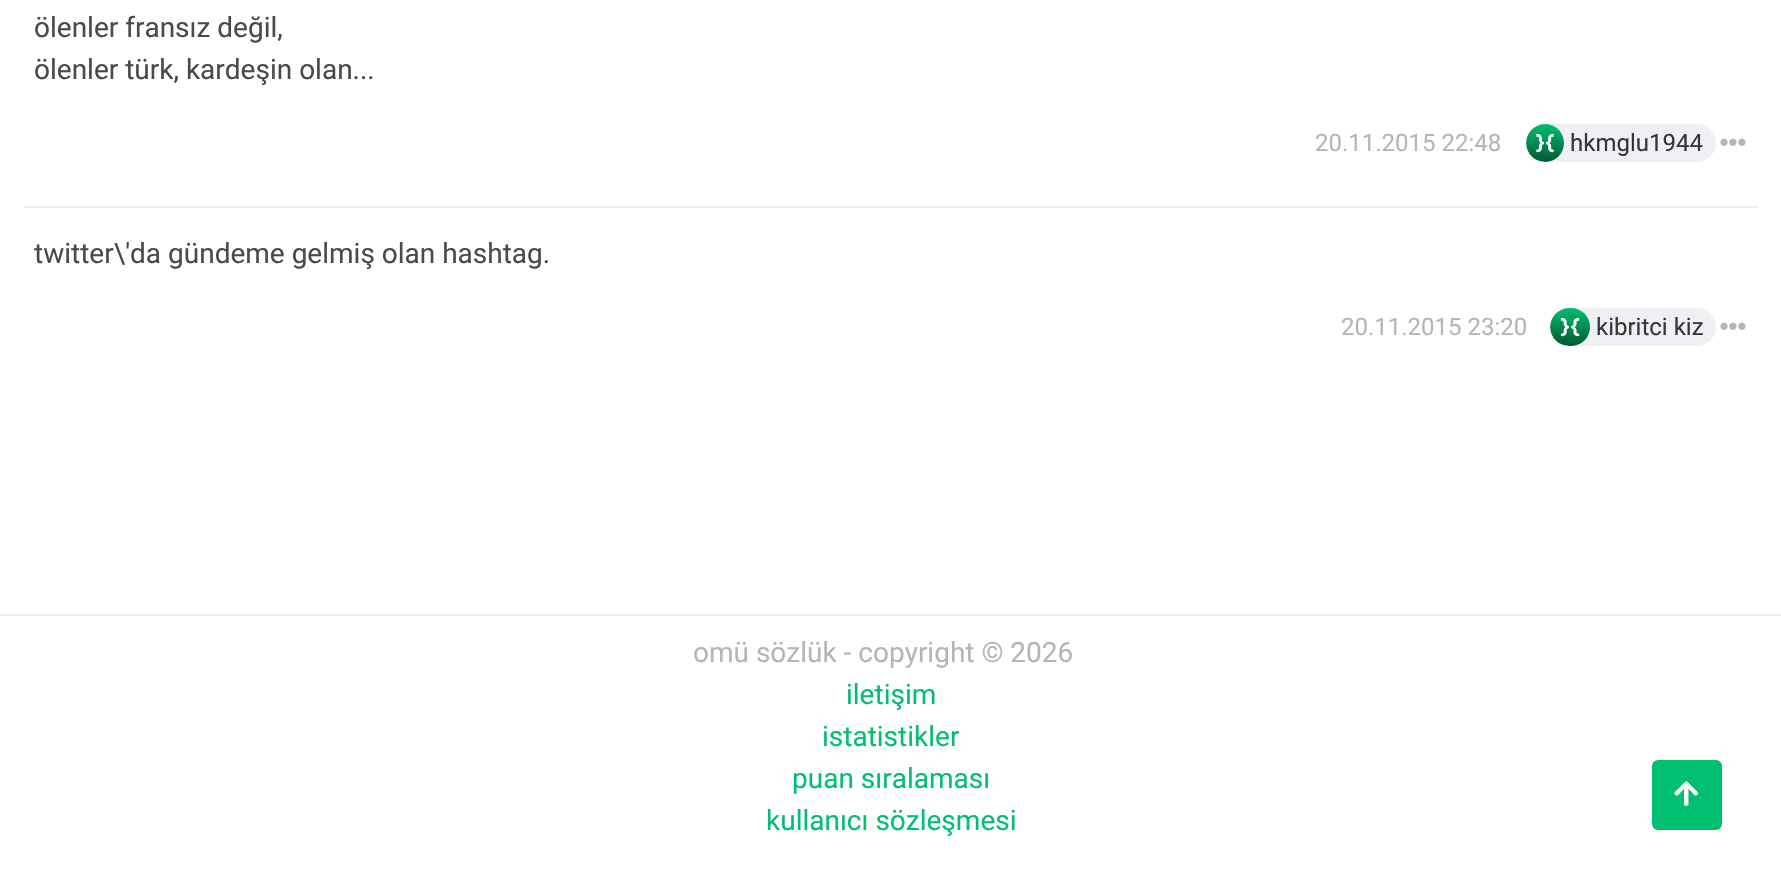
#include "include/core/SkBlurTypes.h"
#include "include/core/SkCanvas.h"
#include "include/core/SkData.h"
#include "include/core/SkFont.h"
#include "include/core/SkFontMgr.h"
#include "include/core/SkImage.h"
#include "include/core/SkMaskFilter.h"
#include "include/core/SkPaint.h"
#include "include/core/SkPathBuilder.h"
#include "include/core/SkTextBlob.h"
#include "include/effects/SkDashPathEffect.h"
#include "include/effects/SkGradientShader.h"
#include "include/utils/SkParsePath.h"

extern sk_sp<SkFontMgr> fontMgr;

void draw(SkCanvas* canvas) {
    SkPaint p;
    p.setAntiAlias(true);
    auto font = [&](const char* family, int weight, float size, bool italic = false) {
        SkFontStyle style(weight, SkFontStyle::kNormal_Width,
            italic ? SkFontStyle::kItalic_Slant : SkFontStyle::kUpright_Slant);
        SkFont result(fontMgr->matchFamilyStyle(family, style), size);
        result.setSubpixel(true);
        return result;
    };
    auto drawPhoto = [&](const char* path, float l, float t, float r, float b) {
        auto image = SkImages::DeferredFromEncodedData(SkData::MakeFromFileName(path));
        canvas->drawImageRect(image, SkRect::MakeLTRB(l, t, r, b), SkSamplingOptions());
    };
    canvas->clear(0xFFFFFFFF);
    p.setColor(0xFFEEEEEE);
    canvas->drawRect(SkRect::MakeLTRB(0, 614, 1781, 616), p);
    auto font1 = font("Roboto", 400, 28);
    p.setColor(0xFF4A4A4A);
    canvas->drawString("ölenler fransız değil,", 34, 37, font1, p);
    canvas->drawString("ölenler türk, kardeşin olan...", 34, 79, font1, p);
    auto font2 = font("Roboto", 400, 24);
    p.setColor(0xFFB5B5B5);
    canvas->drawString("20.11.2015 22:48", 1315, 151, font2, p);
    p.setColor(0xFFEEF0F3);
    canvas->drawRoundRect(SkRect::MakeLTRB(1526, 124, 1716, 162), 19, 19, p);
    drawPhoto("media/1.png", 1526, 124, 1564, 162);
    p.setColor(0xFF363636);
    canvas->drawString("hkmglu1944", 1570, 151, font2, p);
    drawPhoto("media/2.png", 1720, 138, 1746, 146);
    p.setColor(0xFFEDEDED);
    canvas->drawRect(SkRect::MakeLTRB(24, 206, 1758, 208), p);
    p.setColor(0xFF4A4A4A);
    canvas->drawString("twitter\\'da gündeme gelmiş olan hashtag.", 34, 263, font1, p);
    p.setColor(0xFFB5B5B5);
    canvas->drawString("20.11.2015 23:20", 1341, 335, font2, p);
    p.setColor(0xFFEEF0F3);
    canvas->drawRoundRect(SkRect::MakeLTRB(1550, 308, 1716, 346), 19, 19, p);
    drawPhoto("media/3.png", 1550, 308, 1590, 346);
    p.setColor(0xFF363636);
    canvas->drawString("kibritci kiz", 1596, 335, font2, p);
    drawPhoto("media/2.png", 1720, 322, 1746, 330);
    p.setColor(0xFFB5B5B5);
    canvas->drawString("omü sözlük - copyright © 2026", 693, 662, font1, p);
    p.setColor(0xFF00BF6F);
    {
        const struct { const char* s; float x, y; } items[] = {
            {"iletişim", 846, 704},
            {"istatistikler", 822, 746},
            {"puan sıralaması", 792, 788},
            {"kullanıcı sözleşmesi", 766, 830},
        };
        for (auto [s, x, y] : items) {
            canvas->drawString(s, x, y, font1, p);
        }
    }
    canvas->drawRoundRect(SkRect::MakeLTRB(1652, 760, 1722, 830), 6, 6, p);
    drawPhoto("media/4.png", 1674, 781, 1699, 806);
}
